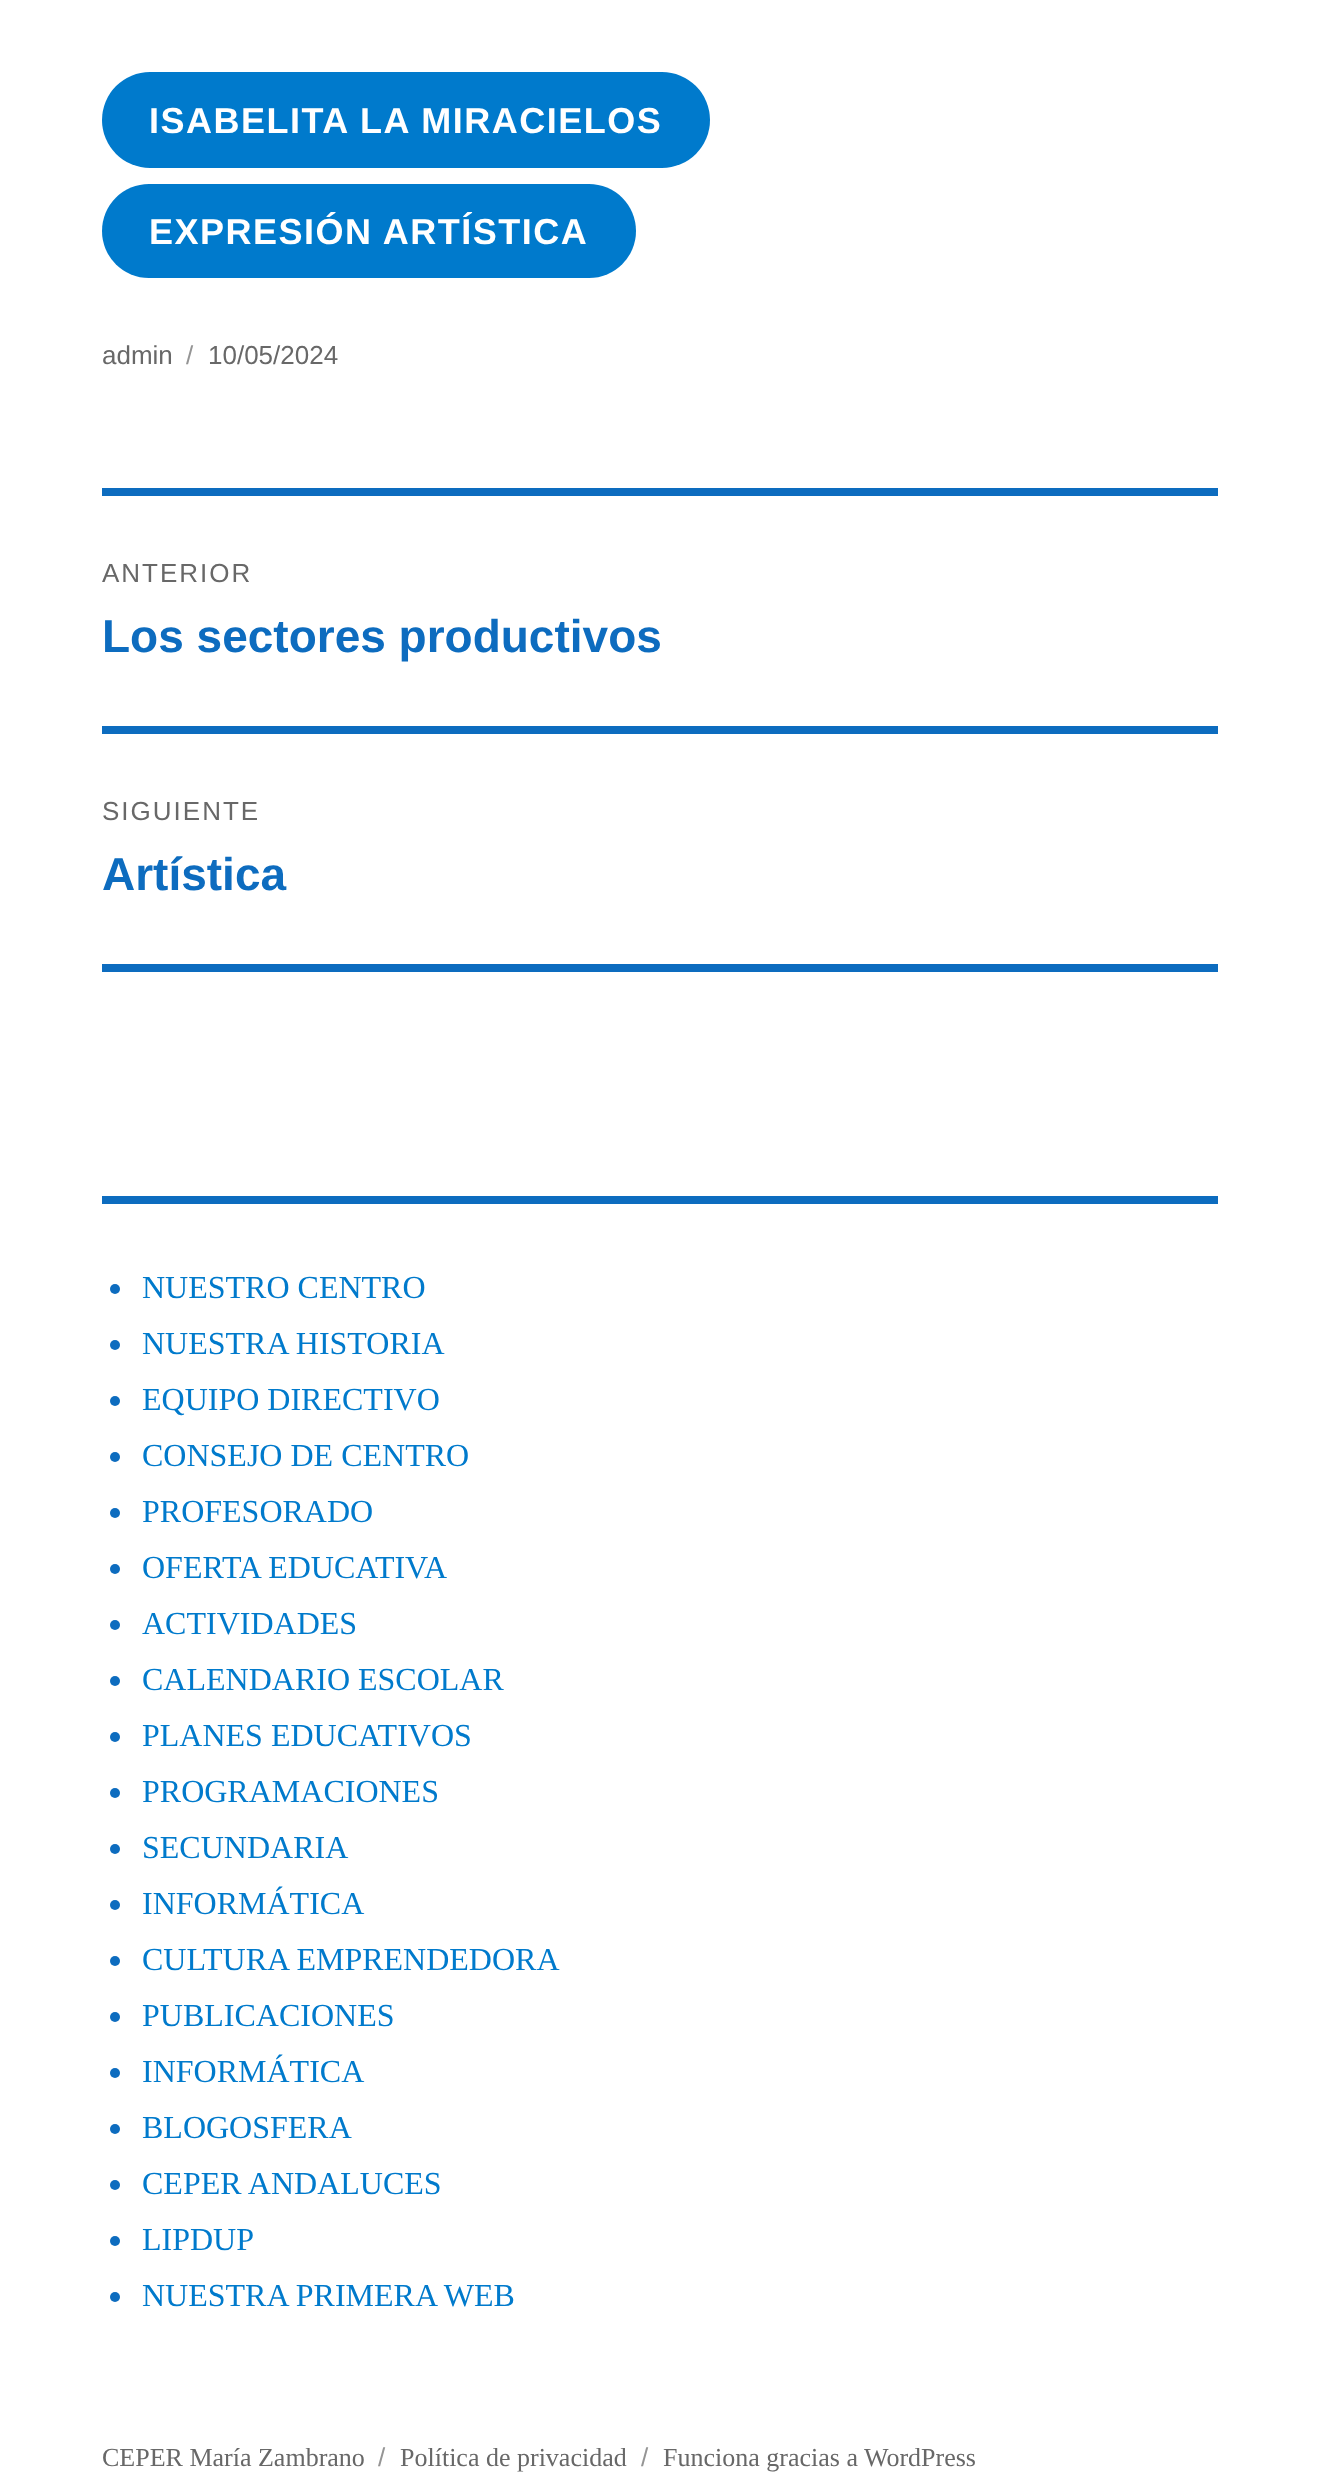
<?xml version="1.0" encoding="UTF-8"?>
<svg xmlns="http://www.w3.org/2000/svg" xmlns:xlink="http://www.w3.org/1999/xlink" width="1319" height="2489">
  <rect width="100%" height="100%" fill="#ffffff" />
  <rect x="102" y="72" width="608" height="96" rx="48" fill="#007acc" />
  <rect x="102" y="184" width="534" height="94" rx="47" fill="#007acc" />
  <rect x="102" y="488" width="1116" height="8" fill="#0d6cbf" />
  <rect x="102" y="964" width="1116" height="8" fill="#0d6cbf" />
  <rect x="102" y="726" width="1116" height="8" fill="#0d6cbf" />
  <rect x="102" y="1196" width="1116" height="8" fill="#0d6cbf" />
  <circle cx="115" cy="1289" r="5" fill="#0d6cbf" />
  <circle cx="115" cy="1345" r="5" fill="#0d6cbf" />
  <circle cx="115" cy="1401" r="5" fill="#0d6cbf" />
  <circle cx="115" cy="1457" r="5" fill="#0d6cbf" />
  <circle cx="115" cy="1513" r="5" fill="#0d6cbf" />
  <circle cx="115" cy="1569" r="5" fill="#0d6cbf" />
  <circle cx="115" cy="1625" r="5" fill="#0d6cbf" />
  <circle cx="115" cy="1681" r="5" fill="#0d6cbf" />
  <circle cx="115" cy="1737" r="5" fill="#0d6cbf" />
  <circle cx="115" cy="1793" r="5" fill="#0d6cbf" />
  <circle cx="115" cy="1849" r="5" fill="#0d6cbf" />
  <circle cx="115" cy="1905" r="5" fill="#0d6cbf" />
  <circle cx="115" cy="1961" r="5" fill="#0d6cbf" />
  <circle cx="115" cy="2017" r="5" fill="#0d6cbf" />
  <circle cx="115" cy="2073" r="5" fill="#0d6cbf" />
  <circle cx="115" cy="2129" r="5" fill="#0d6cbf" />
  <circle cx="115" cy="2185" r="5" fill="#0d6cbf" />
  <circle cx="115" cy="2241" r="5" fill="#0d6cbf" />
  <circle cx="115" cy="2297" r="5" fill="#0d6cbf" />
  <text x="149" y="133" style="font-family: Liberation Sans; font-size: 36px; font-weight: bold; letter-spacing: 1.5px; fill: #ffffff">ISABELITA LA MIRACIELOS</text>
  <text x="149" y="244" style="font-family: Liberation Sans; font-size: 36px; font-weight: bold; letter-spacing: 1.5px; fill: #ffffff">EXPRESIÓN ARTÍSTICA</text>
  <text x="102" y="364" style="font-family: Liberation Sans; font-size: 26px; fill: #686868">admin</text>
  <text x="186" y="364" style="font-family: Liberation Sans; font-size: 26px; fill: #959595">/</text>
  <text x="208" y="364" style="font-family: Liberation Sans; font-size: 26px; fill: #686868">10/05/2024</text>
  <text x="102" y="582" style="font-family: Liberation Sans; font-size: 26px; letter-spacing: 2px; fill: #686868">ANTERIOR</text>
  <text x="102" y="652" style="font-family: Liberation Sans; font-size: 46px; font-weight: bold; fill: #0d6cbf">Los sectores productivos</text>
  <text x="102" y="820" style="font-family: Liberation Sans; font-size: 26px; letter-spacing: 2px; fill: #686868">SIGUIENTE</text>
  <text x="102" y="890" style="font-family: Liberation Sans; font-size: 46px; font-weight: bold; fill: #0d6cbf">Artística</text>
  <text x="142" y="1298" style="font-family: Liberation Serif; font-size: 32px; fill: #007acc">NUESTRO CENTRO</text>
  <text x="142" y="1354" style="font-family: Liberation Serif; font-size: 32px; fill: #007acc">NUESTRA HISTORIA</text>
  <text x="142" y="1410" style="font-family: Liberation Serif; font-size: 32px; fill: #007acc">EQUIPO DIRECTIVO</text>
  <text x="142" y="1466" style="font-family: Liberation Serif; font-size: 32px; fill: #007acc">CONSEJO DE CENTRO</text>
  <text x="142" y="1522" style="font-family: Liberation Serif; font-size: 32px; fill: #007acc">PROFESORADO</text>
  <text x="142" y="1578" style="font-family: Liberation Serif; font-size: 32px; fill: #007acc">OFERTA EDUCATIVA</text>
  <text x="142" y="1634" style="font-family: Liberation Serif; font-size: 32px; fill: #007acc">ACTIVIDADES</text>
  <text x="142" y="1690" style="font-family: Liberation Serif; font-size: 32px; fill: #007acc">CALENDARIO ESCOLAR</text>
  <text x="142" y="1746" style="font-family: Liberation Serif; font-size: 32px; fill: #007acc">PLANES EDUCATIVOS</text>
  <text x="142" y="1802" style="font-family: Liberation Serif; font-size: 32px; fill: #007acc">PROGRAMACIONES</text>
  <text x="142" y="1858" style="font-family: Liberation Serif; font-size: 32px; fill: #007acc">SECUNDARIA</text>
  <text x="142" y="1914" style="font-family: Liberation Serif; font-size: 32px; fill: #007acc">INFORMÁTICA</text>
  <text x="142" y="1970" style="font-family: Liberation Serif; font-size: 32px; fill: #007acc">CULTURA EMPRENDEDORA</text>
  <text x="142" y="2026" style="font-family: Liberation Serif; font-size: 32px; fill: #007acc">PUBLICACIONES</text>
  <text x="142" y="2082" style="font-family: Liberation Serif; font-size: 32px; fill: #007acc">INFORMÁTICA</text>
  <text x="142" y="2138" style="font-family: Liberation Serif; font-size: 32px; fill: #007acc">BLOGOSFERA</text>
  <text x="142" y="2194" style="font-family: Liberation Serif; font-size: 32px; fill: #007acc">CEPER ANDALUCES</text>
  <text x="142" y="2250" style="font-family: Liberation Serif; font-size: 32px; fill: #007acc">LIPDUP</text>
  <text x="142" y="2306" style="font-family: Liberation Serif; font-size: 32px; fill: #007acc">NUESTRA PRIMERA WEB</text>
  <text x="102" y="2466" style="font-family: Liberation Serif; font-size: 26px; fill: #686868">CEPER María Zambrano</text>
  <text x="378" y="2466" style="font-family: Liberation Sans; font-size: 26px; fill: #959595">/</text>
  <text x="400" y="2466" style="font-family: Liberation Serif; font-size: 26px; fill: #686868">Política de privacidad</text>
  <text x="641" y="2466" style="font-family: Liberation Sans; font-size: 26px; fill: #959595">/</text>
  <text x="663" y="2466" style="font-family: Liberation Serif; font-size: 26px; fill: #686868">Funciona gracias a WordPress</text>
</svg>
